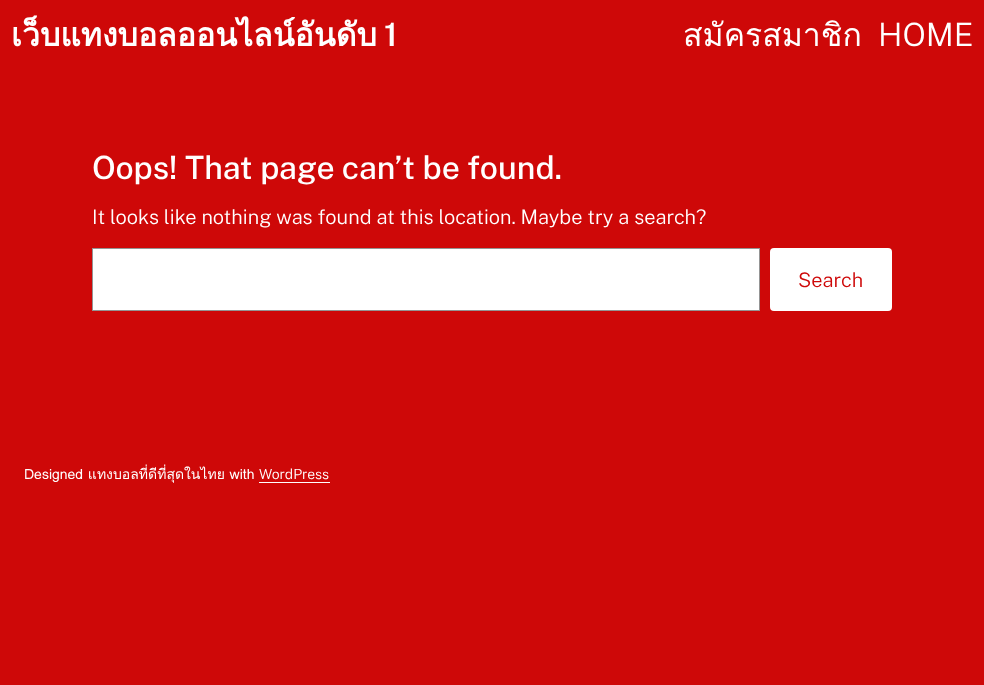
<?xml version="1.0" encoding="UTF-8"?>
<svg xmlns="http://www.w3.org/2000/svg" xmlns:xlink="http://www.w3.org/1999/xlink" width="984" height="685">
  <rect width="100%" height="100%" fill="#ce0808" />
  <rect x="92.5" y="248.5" width="667" height="62" fill="#ffffff" stroke="#949494" />
  <rect x="770" y="248" width="122" height="63" rx="4" fill="#ffffff" />
  <rect x="259" y="482" width="71" height="1" fill="#ffffff" />
  <text x="11" y="46" style="font-family: Loma; font-size: 32px; font-weight: bold; fill: #ffffff">เว็บแทงบอลออนไลน์อันดับ</text>
  <text x="384" y="46" style="font-family: Public Sans; font-size: 32px; font-weight: 600; fill: #ffffff">1</text>
  <text x="683" y="46" style="font-family: Loma; font-size: 32px; fill: #ffffff">สมัครสมาชิก</text>
  <text x="878" y="46" style="font-family: Public Sans; font-size: 32px; font-weight: 300; fill: #ffffff">HOME</text>
  <text x="92" y="179" style="font-family: Public Sans; font-size: 32px; font-weight: 500; fill: #ffffff">Oops! That page can’t be found.</text>
  <text x="92" y="224" style="font-family: Public Sans; font-size: 20px; font-weight: 300; fill: #ffffff">It looks like nothing was found at this location. Maybe try a search?</text>
  <text x="798" y="287" style="font-family: Public Sans; font-size: 20px; font-weight: 300; fill: #ce0808">Search</text>
  <text x="24" y="479" style="font-family: Loma; font-size: 14px; fill: #ffffff">Designed แทงบอลที่ดีที่สุดในไทย with</text>
  <text x="259" y="479" style="font-family: Public Sans; font-size: 14px; font-weight: 300; fill: #ffffff">WordPress</text>
</svg>
